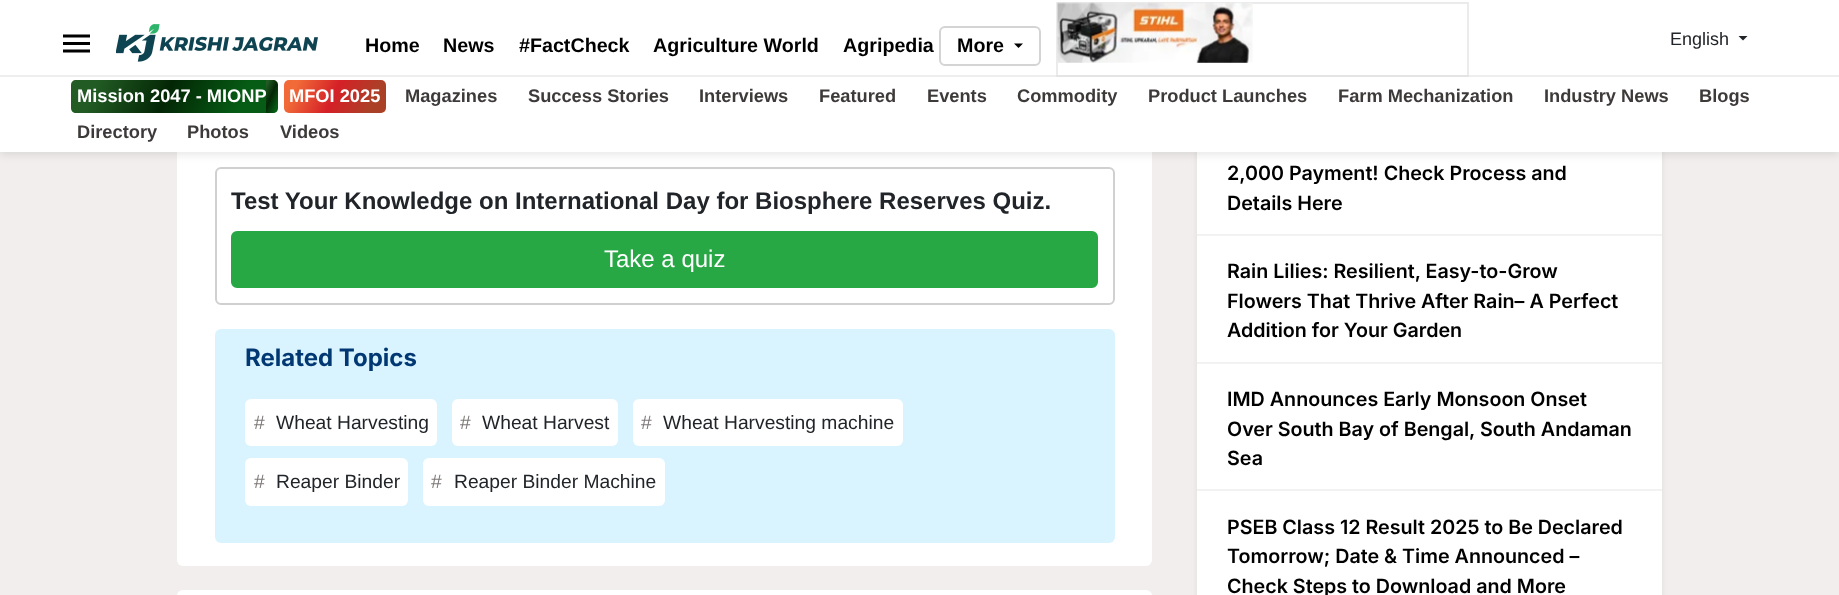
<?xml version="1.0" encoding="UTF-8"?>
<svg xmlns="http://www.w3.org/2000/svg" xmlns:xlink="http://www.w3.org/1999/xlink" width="1839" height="595">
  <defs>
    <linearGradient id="g1" gradientUnits="userSpaceOnUse" x1="80" y1="57" x2="256" y2="135"><stop offset="0.13" stop-color="#225c24" /><stop offset="0.49" stop-color="#032605" /><stop offset="0.86" stop-color="#065c14" /></linearGradient>
    <linearGradient id="g2" gradientUnits="userSpaceOnUse" x1="260" y1="91" x2="283" y2="101"><stop offset="0.13" stop-color="#225c24" /><stop offset="0.49" stop-color="#032605" /><stop offset="0.86" stop-color="#065c14" /></linearGradient>
    <linearGradient id="g3" gradientUnits="userSpaceOnUse" x1="286" y1="74" x2="383" y2="118"><stop offset="0.13" stop-color="#f16a38" /><stop offset="0.49" stop-color="#d52027" /><stop offset="0.86" stop-color="#aa4127" /></linearGradient>
  </defs>
  <rect width="100%" height="100%" fill="#f1eeed" />
  <rect x="177" y="-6" width="975" height="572" rx="6" fill="#ffffff" />
  <rect x="216" y="168" width="898" height="136" rx="5" fill="none" stroke="#d0d0d0" stroke-width="2" />
  <rect x="1197" y="35" width="465" height="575" rx="6" fill="#000000" fill-opacity="0.07" filter="blur(3px)" />
  <rect x="1197" y="152" width="465" height="443" fill="#ffffff" />
  <rect y="3" width="1839" height="152" fill="#000000" fill-opacity="0.09" filter="blur(4.5px)" />
  <rect width="1839" height="152" fill="#ffffff" />
  <image x="63" y="34" width="27" height="19" xlink:href="image1.png" />
  <image x="116" y="24" width="202" height="38" xlink:href="image2.png" />
  <rect x="940" y="27" width="100" height="38" rx="5" fill="none" stroke="#d5d4d4" stroke-width="2" />
  <path d="M 1014 43.5 h 9 l -4.5 4.5 z" fill="#000000" />
  <rect y="75" width="1839" height="2" fill="#eeeeee" />
  <rect x="1057" y="3" width="411" height="73" fill="none" stroke="#dddddd" stroke-opacity="0.59" stroke-width="2" />
  <image x="1057" y="2" width="196" height="61" xlink:href="image3.png" />
  <path d="M 1738.5 36 h 9 l -4.5 4.5 z" fill="#212529" />
  <path d="M 76 80 h 190 v 33 h -190 c -3 0 -5 -2 -5 -5 v -23 c 0 -3 2 -5 5 -5 z" fill="url(#g1)" />
  <path d="M 266 80 h 7 c 3 0 5 2 5 5 v 23 c 0 3 -2 5 -5 5 h -7 z" fill="url(#g2)" />
  <rect x="284" y="80" width="102" height="33" rx="5" fill="url(#g3)" />
  <rect x="232" y="232" width="865" height="55" rx="5" fill="#28a745" stroke="#28a745" stroke-width="2" />
  <rect x="215" y="329" width="900" height="214" rx="6" fill="#daf4ff" />
  <rect x="245" y="399" width="192" height="47" rx="6" fill="#ffffff" />
  <rect x="452" y="399" width="166" height="47" rx="6" fill="#ffffff" />
  <rect x="633" y="399" width="270" height="47" rx="6" fill="#ffffff" />
  <rect x="245" y="458" width="163" height="48" rx="6" fill="#ffffff" />
  <rect x="423" y="458" width="242" height="48" rx="6" fill="#ffffff" />
  <rect x="177" y="590" width="975" height="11" rx="6" fill="#ffffff" />
  <rect x="1197" y="234" width="465" height="2" fill="#f2f2f2" />
  <rect x="1197" y="362" width="465" height="2" fill="#f2f2f2" />
  <rect x="1197" y="489" width="465" height="2" fill="#f2f2f2" />
  <text x="365" y="52" style="font-family: Liberation Sans; font-size: 19.7px; font-weight: bold; fill: #000000">Home</text>
  <text x="443" y="52" style="font-family: Liberation Sans; font-size: 19.7px; font-weight: bold; fill: #000000">News</text>
  <text x="519" y="52" style="font-family: Liberation Sans; font-size: 19.7px; font-weight: bold; fill: #000000">#FactCheck</text>
  <text x="653" y="52" style="font-family: Liberation Sans; font-size: 19.7px; font-weight: bold; fill: #000000">Agriculture World</text>
  <text x="843" y="52" style="font-family: Liberation Sans; font-size: 19.7px; font-weight: bold; fill: #000000">Agripedia</text>
  <text x="957" y="52" style="font-family: Liberation Sans; font-size: 19.7px; font-weight: bold; fill: #000000">More</text>
  <text x="1670" y="45" style="font-family: Liberation Sans; font-size: 18px; fill: #212529">English</text>
  <text x="77" y="102" style="font-family: Liberation Sans; font-size: 18.25px; font-weight: bold; fill: #ffffff">Mission 2047 - MIONP</text>
  <text x="289" y="102" style="font-family: Liberation Sans; font-size: 18.25px; font-weight: bold; fill: #ffffff">MFOI 2025</text>
  <text x="405" y="102" style="font-family: Liberation Sans; font-size: 18.25px; font-weight: bold; fill: #3e3a3a">Magazines</text>
  <text x="528" y="102" style="font-family: Liberation Sans; font-size: 18.25px; font-weight: bold; fill: #3e3a3a">Success Stories</text>
  <text x="699" y="102" style="font-family: Liberation Sans; font-size: 18.25px; font-weight: bold; fill: #3e3a3a">Interviews</text>
  <text x="819" y="102" style="font-family: Liberation Sans; font-size: 18.25px; font-weight: bold; fill: #3e3a3a">Featured</text>
  <text x="927" y="102" style="font-family: Liberation Sans; font-size: 18.25px; font-weight: bold; fill: #3e3a3a">Events</text>
  <text x="1017" y="102" style="font-family: Liberation Sans; font-size: 18.25px; font-weight: bold; fill: #3e3a3a">Commodity</text>
  <text x="1148" y="102" style="font-family: Liberation Sans; font-size: 18.25px; font-weight: bold; fill: #3e3a3a">Product Launches</text>
  <text x="1338" y="102" style="font-family: Liberation Sans; font-size: 18.25px; font-weight: bold; fill: #3e3a3a">Farm Mechanization</text>
  <text x="1544" y="102" style="font-family: Liberation Sans; font-size: 18.25px; font-weight: bold; fill: #3e3a3a">Industry News</text>
  <text x="1699" y="102" style="font-family: Liberation Sans; font-size: 18.25px; font-weight: bold; fill: #3e3a3a">Blogs</text>
  <text x="77" y="138" style="font-family: Liberation Sans; font-size: 18.25px; font-weight: bold; fill: #3e3a3a">Directory</text>
  <text x="187" y="138" style="font-family: Liberation Sans; font-size: 18.25px; font-weight: bold; fill: #3e3a3a">Photos</text>
  <text x="280" y="138" style="font-family: Liberation Sans; font-size: 18.25px; font-weight: bold; fill: #3e3a3a">Videos</text>
  <text x="231" y="209" style="font-family: Liberation Sans; font-size: 24px; font-weight: bold; fill: #212529">Test Your Knowledge on International Day for Biosphere Reserves Quiz.</text>
  <text x="604" y="267" style="font-family: Liberation Sans; font-size: 24px; fill: #ffffff">Take a quiz</text>
  <text x="245" y="366" style="font-family: Inter; font-size: 24px; font-weight: bold; fill: #013873">Related Topics</text>
  <text x="254" y="429" style="font-family: Liberation Sans; font-size: 19.25px; fill: #7d7878">#</text>
  <text x="276" y="429" style="font-family: Liberation Sans; font-size: 19.25px; fill: #212529">Wheat Harvesting</text>
  <text x="460" y="429" style="font-family: Liberation Sans; font-size: 19.25px; fill: #7d7878">#</text>
  <text x="482" y="429" style="font-family: Liberation Sans; font-size: 19.25px; fill: #212529">Wheat Harvest</text>
  <text x="641" y="429" style="font-family: Liberation Sans; font-size: 19.25px; fill: #7d7878">#</text>
  <text x="663" y="429" style="font-family: Liberation Sans; font-size: 19.25px; fill: #212529">Wheat Harvesting machine</text>
  <text x="254" y="488" style="font-family: Liberation Sans; font-size: 19.25px; fill: #7d7878">#</text>
  <text x="276" y="488" style="font-family: Liberation Sans; font-size: 19.25px; fill: #212529">Reaper Binder</text>
  <text x="431" y="488" style="font-family: Liberation Sans; font-size: 19.25px; fill: #7d7878">#</text>
  <text x="454" y="488" style="font-family: Liberation Sans; font-size: 19.25px; fill: #212529">Reaper Binder Machine</text>
  <text x="1227" y="180" style="font-family: Inter; font-size: 19.7px; font-weight: 600; fill: #000000">2,000 Payment! Check Process and</text>
  <text x="1227" y="210" style="font-family: Inter; font-size: 19.7px; font-weight: 600; fill: #000000">Details Here</text>
  <text x="1227" y="278" style="font-family: Inter; font-size: 19.7px; font-weight: 600; fill: #000000">Rain Lilies: Resilient, Easy-to-Grow</text>
  <text x="1227" y="308" style="font-family: Inter; font-size: 19.7px; font-weight: 600; fill: #000000">Flowers That Thrive After Rain– A Perfect</text>
  <text x="1227" y="337" style="font-family: Inter; font-size: 19.7px; font-weight: 600; fill: #000000">Addition for Your Garden</text>
  <text x="1227" y="406" style="font-family: Inter; font-size: 19.7px; font-weight: 600; fill: #000000">IMD Announces Early Monsoon Onset</text>
  <text x="1227" y="436" style="font-family: Inter; font-size: 19.7px; font-weight: 600; fill: #000000">Over South Bay of Bengal, South Andaman</text>
  <text x="1227" y="465" style="font-family: Inter; font-size: 19.7px; font-weight: 600; fill: #000000">Sea</text>
  <text x="1227" y="534" style="font-family: Inter; font-size: 19.7px; font-weight: 600; fill: #000000">PSEB Class 12 Result 2025 to Be Declared</text>
  <text x="1227" y="563" style="font-family: Inter; font-size: 19.7px; font-weight: 600; fill: #000000">Tomorrow; Date &amp; Time Announced –</text>
  <text x="1227" y="593" style="font-family: Inter; font-size: 19.7px; font-weight: 600; fill: #000000">Check Steps to Download and More</text>
</svg>
